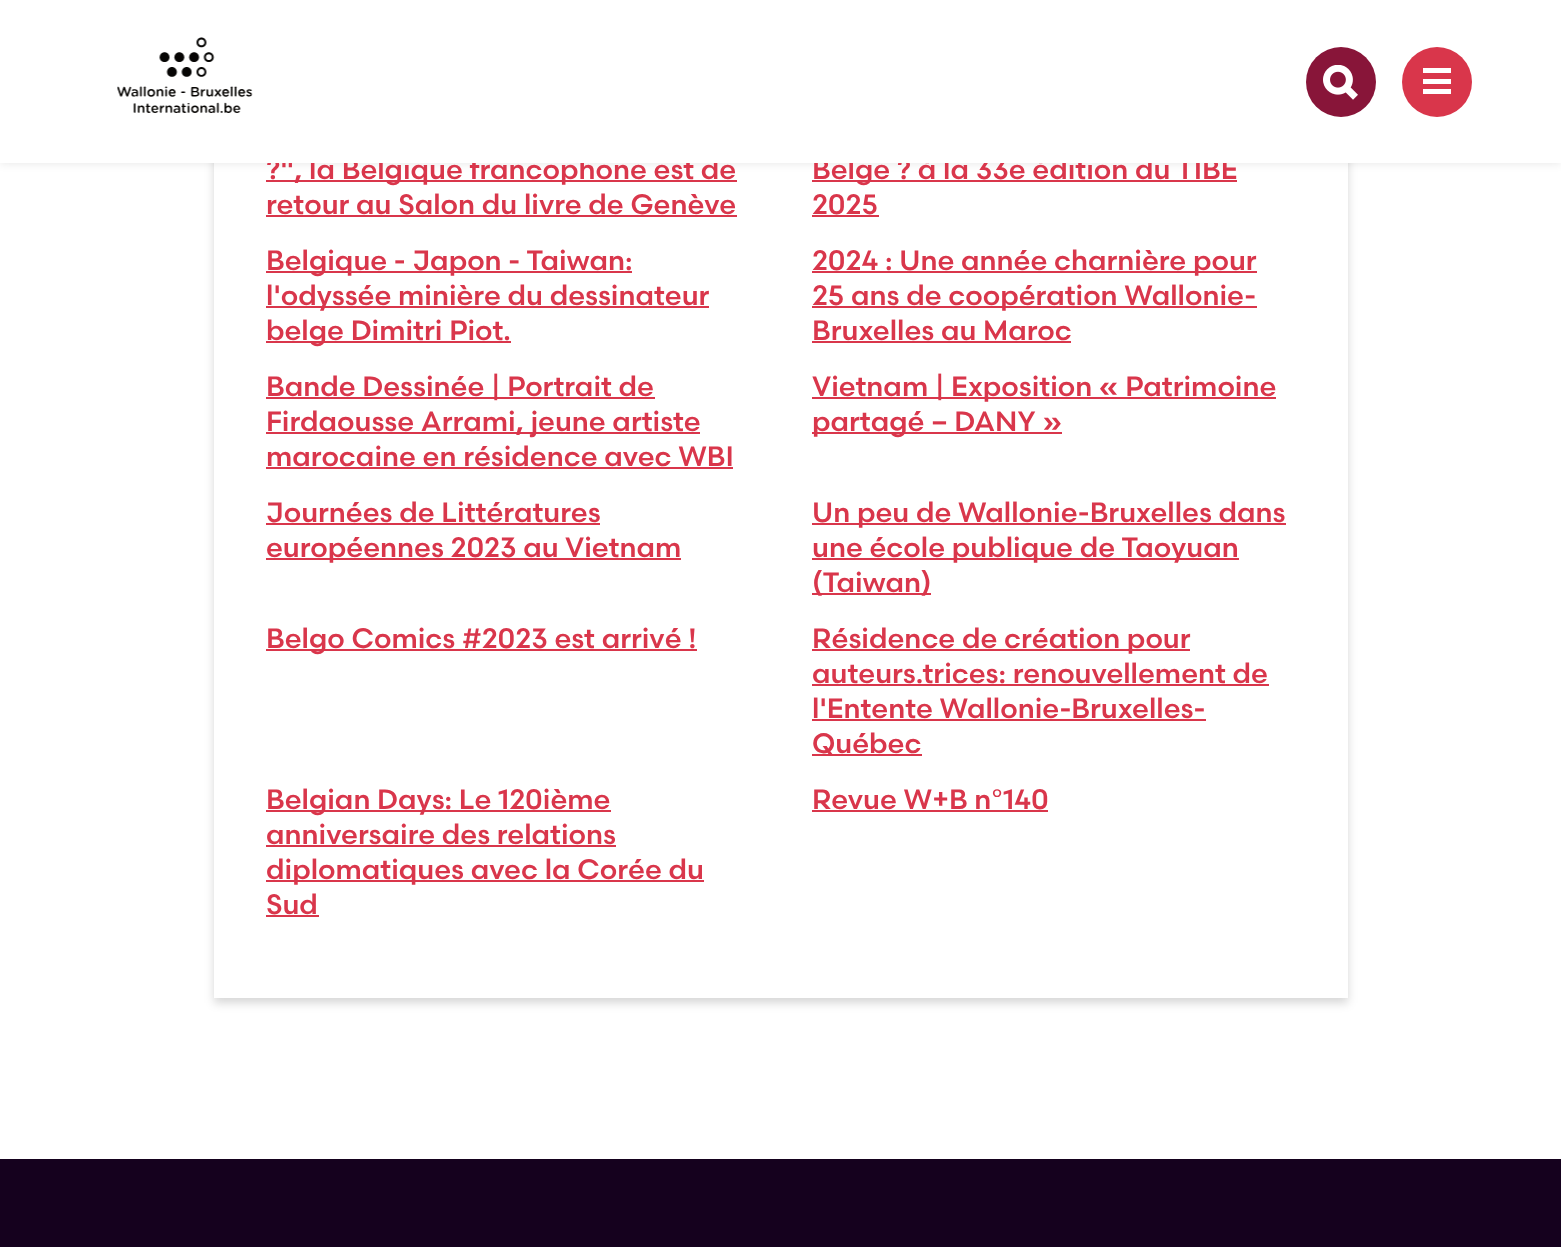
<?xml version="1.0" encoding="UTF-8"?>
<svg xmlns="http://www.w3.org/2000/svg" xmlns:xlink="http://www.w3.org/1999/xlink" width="1561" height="1247">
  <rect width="100%" height="100%" fill="#ffffff" />
  <rect x="214" y="-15" width="1134" height="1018" fill="#000000" fill-opacity="0.16" filter="blur(5px)" />
  <rect x="214" y="163" width="1134" height="835" fill="#ffffff" />
  <rect width="1561" height="163" fill="#000000" fill-opacity="0.1" filter="blur(5px)" />
  <rect x="266" y="180" width="471" height="2" fill="#d9364b" />
  <rect x="266" y="215" width="471" height="2" fill="#d9364b" />
  <rect x="812" y="180" width="425" height="2" fill="#d9364b" />
  <rect x="812" y="215" width="67" height="2" fill="#d9364b" />
  <rect x="266" y="271" width="366" height="2" fill="#d9364b" />
  <rect x="266" y="306" width="443" height="2" fill="#d9364b" />
  <rect x="266" y="341" width="245" height="2" fill="#d9364b" />
  <rect x="812" y="271" width="445" height="2" fill="#d9364b" />
  <rect x="812" y="306" width="445" height="2" fill="#d9364b" />
  <rect x="812" y="341" width="259" height="2" fill="#d9364b" />
  <rect x="266" y="397" width="389" height="2" fill="#d9364b" />
  <rect x="266" y="432" width="434" height="2" fill="#d9364b" />
  <rect x="266" y="467" width="467" height="2" fill="#d9364b" />
  <rect x="812" y="397" width="464" height="2" fill="#d9364b" />
  <rect x="812" y="432" width="250" height="2" fill="#d9364b" />
  <rect x="266" y="523" width="334" height="2" fill="#d9364b" />
  <rect x="266" y="558" width="415" height="2" fill="#d9364b" />
  <rect x="812" y="523" width="474" height="2" fill="#d9364b" />
  <rect x="812" y="558" width="427" height="2" fill="#d9364b" />
  <rect x="812" y="593" width="119" height="2" fill="#d9364b" />
  <rect x="266" y="649" width="431" height="2" fill="#d9364b" />
  <rect x="812" y="649" width="378" height="2" fill="#d9364b" />
  <rect x="812" y="684" width="457" height="2" fill="#d9364b" />
  <rect x="812" y="719" width="394" height="2" fill="#d9364b" />
  <rect x="812" y="754" width="110" height="2" fill="#d9364b" />
  <rect x="266" y="810" width="345" height="2" fill="#d9364b" />
  <rect x="266" y="845" width="350" height="2" fill="#d9364b" />
  <rect x="266" y="880" width="438" height="2" fill="#d9364b" />
  <rect x="266" y="915" width="53" height="2" fill="#d9364b" />
  <rect x="812" y="810" width="236" height="2" fill="#d9364b" />
  <rect y="1159" width="1561" height="88" fill="#15011e" />
  <text x="266" y="179" style="font-family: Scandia; font-size: 28px; font-weight: 500; fill: #d9364b">?", la Belgique francophone est de</text>
  <text x="266" y="214" style="font-family: Scandia; font-size: 28px; font-weight: 500; fill: #d9364b">retour au Salon du livre de Genève</text>
  <text x="812" y="179" style="font-family: Scandia; font-size: 28px; font-weight: 500; fill: #d9364b">Belge ? à la 33e édition du TIBE</text>
  <rect width="1561" height="163" fill="#ffffff" />
  <circle cx="1437" cy="82" r="35" fill="#d9364b" />
  <rect x="1423" y="89" width="28" height="5" fill="#ffffff" />
  <rect x="1423" y="79" width="28" height="5" fill="#ffffff" />
  <rect x="1423" y="68" width="28" height="5" fill="#ffffff" />
  <circle cx="1341" cy="82" r="35" fill="#881539" />
  <image x="1323" y="65" width="35" height="35" xlink:href="image2.png" />
  <image x="117" y="37" width="136" height="76" xlink:href="image1.png" />
  <text x="812" y="214" style="font-family: Scandia; font-size: 28px; font-weight: 500; fill: #d9364b">2025</text>
  <text x="266" y="270" style="font-family: Scandia; font-size: 28px; font-weight: 500; fill: #d9364b">Belgique - Japon - Taiwan:</text>
  <text x="266" y="305" style="font-family: Scandia; font-size: 28px; font-weight: 500; fill: #d9364b">l'odyssée minière du dessinateur</text>
  <text x="266" y="340" style="font-family: Scandia; font-size: 28px; font-weight: 500; fill: #d9364b">belge Dimitri Piot.</text>
  <text x="812" y="270" style="font-family: Scandia; font-size: 28px; font-weight: 500; fill: #d9364b">2024 : Une année charnière pour</text>
  <text x="812" y="305" style="font-family: Scandia; font-size: 28px; font-weight: 500; fill: #d9364b">25 ans de coopération Wallonie-</text>
  <text x="812" y="340" style="font-family: Scandia; font-size: 28px; font-weight: 500; fill: #d9364b">Bruxelles au Maroc</text>
  <text x="266" y="396" style="font-family: Scandia; font-size: 28px; font-weight: 500; fill: #d9364b">Bande Dessinée | Portrait de</text>
  <text x="266" y="431" style="font-family: Scandia; font-size: 28px; font-weight: 500; fill: #d9364b">Firdaousse Arrami, jeune artiste</text>
  <text x="266" y="466" style="font-family: Scandia; font-size: 28px; font-weight: 500; fill: #d9364b">marocaine en résidence avec WBI</text>
  <text x="812" y="396" style="font-family: Scandia; font-size: 28px; font-weight: 500; fill: #d9364b">Vietnam | Exposition « Patrimoine</text>
  <text x="812" y="431" style="font-family: Scandia; font-size: 28px; font-weight: 500; fill: #d9364b">partagé – DANY »</text>
  <text x="266" y="522" style="font-family: Scandia; font-size: 28px; font-weight: 500; fill: #d9364b">Journées de Littératures</text>
  <text x="266" y="557" style="font-family: Scandia; font-size: 28px; font-weight: 500; fill: #d9364b">européennes 2023 au Vietnam</text>
  <text x="812" y="522" style="font-family: Scandia; font-size: 28px; font-weight: 500; fill: #d9364b">Un peu de Wallonie-Bruxelles dans</text>
  <text x="812" y="557" style="font-family: Scandia; font-size: 28px; font-weight: 500; fill: #d9364b">une école publique de Taoyuan</text>
  <text x="812" y="592" style="font-family: Scandia; font-size: 28px; font-weight: 500; fill: #d9364b">(Taiwan)</text>
  <text x="266" y="648" style="font-family: Scandia; font-size: 28px; font-weight: 500; fill: #d9364b">Belgo Comics #2023 est arrivé !</text>
  <text x="812" y="648" style="font-family: Scandia; font-size: 28px; font-weight: 500; fill: #d9364b">Résidence de création pour</text>
  <text x="812" y="683" style="font-family: Scandia; font-size: 28px; font-weight: 500; fill: #d9364b">auteurs.trices: renouvellement de</text>
  <text x="812" y="718" style="font-family: Scandia; font-size: 28px; font-weight: 500; fill: #d9364b">l'Entente Wallonie-Bruxelles-</text>
  <text x="812" y="753" style="font-family: Scandia; font-size: 28px; font-weight: 500; fill: #d9364b">Québec</text>
  <text x="266" y="809" style="font-family: Scandia; font-size: 28px; font-weight: 500; fill: #d9364b">Belgian Days: Le 120ième</text>
  <text x="266" y="844" style="font-family: Scandia; font-size: 28px; font-weight: 500; fill: #d9364b">anniversaire des relations</text>
  <text x="266" y="879" style="font-family: Scandia; font-size: 28px; font-weight: 500; fill: #d9364b">diplomatiques avec la Corée du</text>
  <text x="266" y="914" style="font-family: Scandia; font-size: 28px; font-weight: 500; fill: #d9364b">Sud</text>
  <text x="812" y="809" style="font-family: Scandia; font-size: 28px; font-weight: 500; fill: #d9364b">Revue W+B n°140</text>
</svg>
